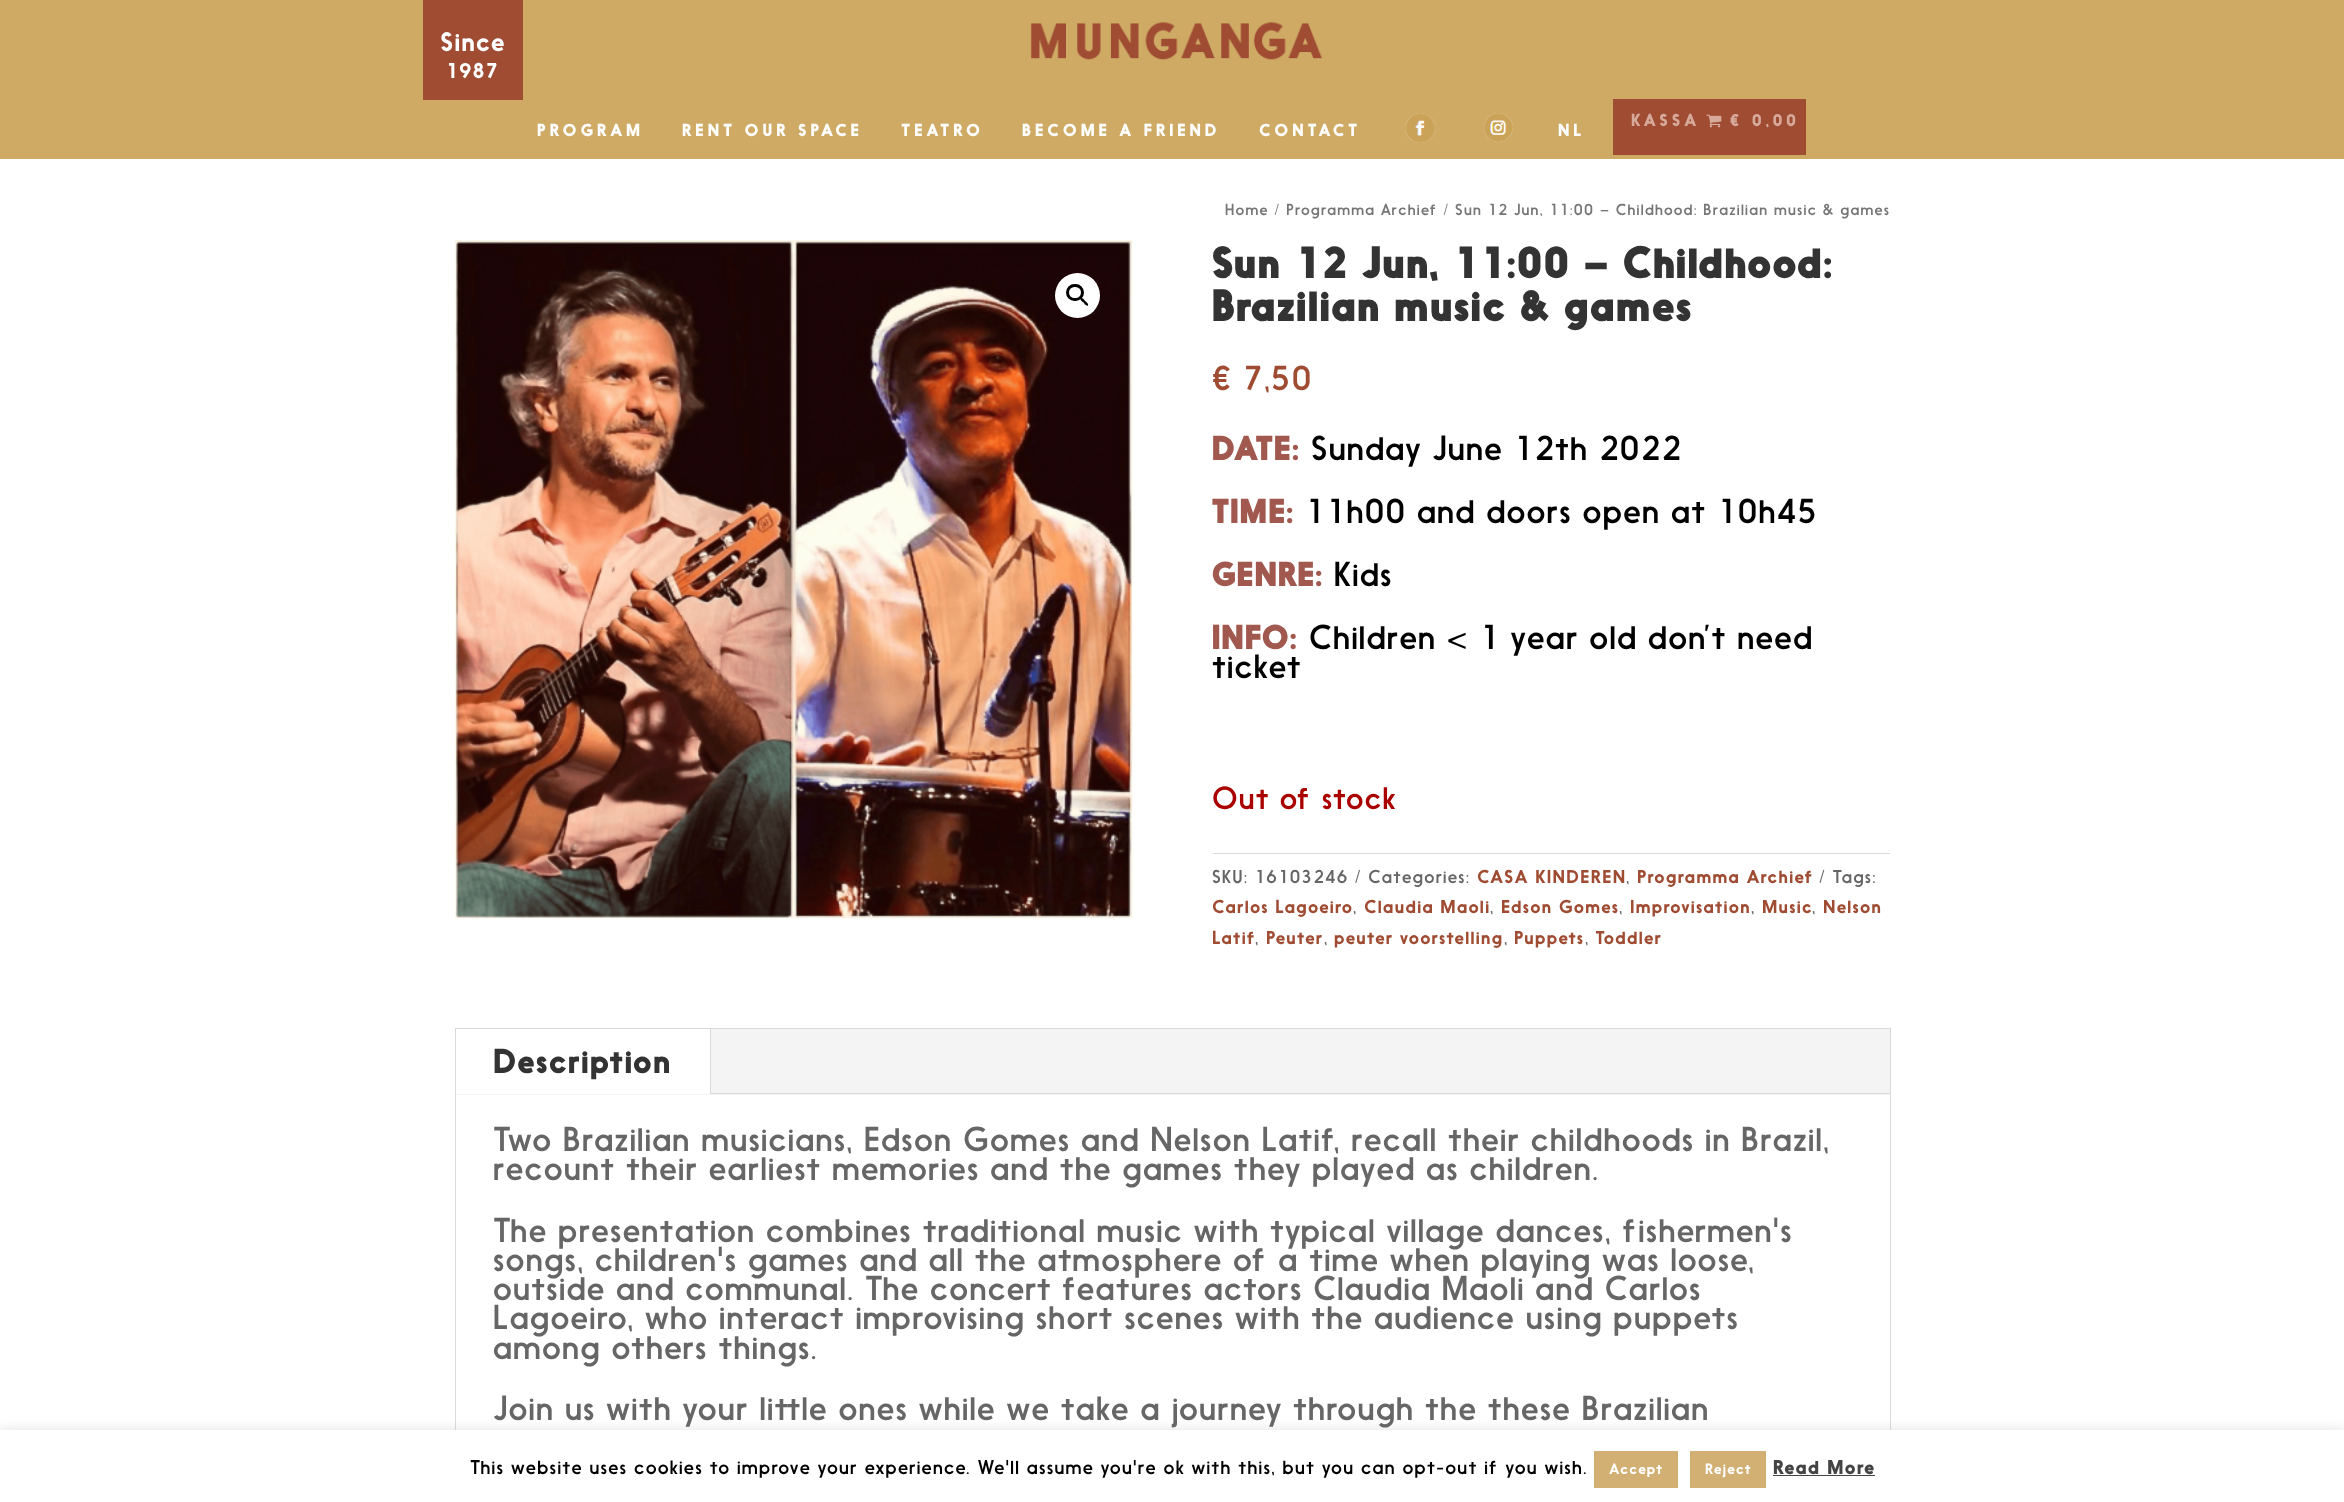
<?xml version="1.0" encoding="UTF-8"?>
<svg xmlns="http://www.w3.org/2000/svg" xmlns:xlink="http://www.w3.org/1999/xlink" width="2344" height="1502">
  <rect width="100%" height="100%" fill="#ffffff" />
  <rect width="2344" height="159" fill="#ceaa65" />
  <rect x="423" width="100" height="100" fill="#9f4c33" />
  <image x="1031" y="22" width="292" height="38" xlink:href="image1.png" />
  <image x="1405" y="113" width="31" height="30" xlink:href="image2.png" />
  <image x="1484" y="113" width="29" height="29" xlink:href="image3.png" />
  <rect x="1613" y="99" width="193" height="56" fill="#9f4c33" />
  <image x="1706" y="114" width="16" height="14" xlink:href="image4.png" />
  <image x="455" y="240" width="678" height="679" xlink:href="image5.png" />
  <circle cx="1077.5" cy="295.5" r="22.5" fill="#ffffff" />
  <rect x="1067.5" y="285.5" width="15" height="14" rx="7" fill="none" stroke="#000000" stroke-width="3" />
  <path d="M 1080.5 298 c 1.5 -1 4 2 4.5 3 c 1 0.5 4 3 3 4.5 c -1.5 1 -4 -2 -4.5 -3 c -1 -0.5 -4 -3 -3 -4.5 z" fill="#000000" />
  <rect x="1213" y="853" width="677" height="1" fill="#dadada" />
  <rect x="455.5" y="1028.5" width="1435" height="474" fill="none" stroke="#d9d9d9" />
  <rect x="456" y="1029" width="1434" height="66" fill="#f4f4f4" />
  <rect x="456" y="1029" width="254" height="65" fill="#ffffff" />
  <rect x="710" y="1029" width="1" height="65" fill="#d9d9d9" />
  <rect x="711" y="1093" width="1179" height="1" fill="#d9d9d9" />
  <rect y="1429" width="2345" height="72" fill="#acabab" fill-opacity="0.3" filter="blur(6px)" />
  <rect y="1430" width="2344" height="72" fill="#ffffff" />
  <rect x="1594" y="1451" width="84" height="37" fill="#d2b074" />
  <rect x="1690" y="1451" width="76" height="37" fill="#d2b074" />
  <rect x="1773" y="1475" width="102" height="1" fill="#444444" />
  <text x="440" y="51" style="font-family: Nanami; font-size: 25px; font-weight: 500; letter-spacing: 1.25px; fill: #ffffff">Since</text>
  <text x="446" y="78" style="font-family: Nanami; font-size: 20px; font-weight: 500; letter-spacing: 1.25px; fill: #ffffff">1987</text>
  <text x="1631" y="126" style="font-family: Nanami; font-size: 16.25px; font-weight: bold; letter-spacing: 3.75px; fill: #d6a99b">KASSA</text>
  <text x="1730" y="126" style="font-family: Nanami; font-size: 16.25px; font-weight: bold; letter-spacing: 3.75px; fill: #d6a99b">€ 0,00</text>
  <text x="537" y="136" style="font-family: Nanami; font-size: 16.25px; font-weight: bold; letter-spacing: 3.75px; fill: #ffffff">PROGRAM</text>
  <text x="682" y="136" style="font-family: Nanami; font-size: 16.25px; font-weight: bold; letter-spacing: 3.75px; fill: #ffffff">RENT OUR SPACE</text>
  <text x="901" y="136" style="font-family: Nanami; font-size: 16.25px; font-weight: bold; letter-spacing: 3.75px; fill: #ffffff">TEATRO</text>
  <text x="1022" y="136" style="font-family: Nanami; font-size: 16.25px; font-weight: bold; letter-spacing: 3.75px; fill: #ffffff">BECOME A FRIEND</text>
  <text x="1259" y="136" style="font-family: Nanami; font-size: 16.25px; font-weight: bold; letter-spacing: 3.75px; fill: #ffffff">CONTACT</text>
  <text x="1558" y="136" style="font-family: Nanami; font-size: 16.25px; font-weight: bold; letter-spacing: 3.75px; fill: #ffffff">NL</text>
  <text x="1225" y="215" style="font-family: Nanami; font-size: 15px; letter-spacing: 1.25px; fill: #767676">Home / Programma Archief / Sun 12 Jun, 11:00 – Childhood: Brazilian music &amp; games</text>
  <text x="1212" y="278" style="font-family: Nanami; font-size: 42.5px; font-weight: 900; letter-spacing: 1.25px; fill: #333333">Sun 12 Jun, 11:00 – Childhood:</text>
  <text x="1212" y="321" style="font-family: Nanami; font-size: 42.5px; font-weight: 900; letter-spacing: 1.25px; fill: #333333">Brazilian music &amp; games</text>
  <text x="1212" y="390" style="font-family: Nanami; font-size: 32.5px; letter-spacing: 1.25px; fill: #9f4c33">€ 7,50</text>
  <text x="1212" y="460" style="font-family: Nanami; font-size: 32.5px; font-weight: 900; letter-spacing: 1.25px; fill: #a1584e">DATE:</text>
  <text x="1311" y="460" style="font-family: Nanami; font-size: 32.5px; letter-spacing: 1.25px; fill: #000000">Sunday June 12th 2022</text>
  <text x="1212" y="523" style="font-family: Nanami; font-size: 32.5px; font-weight: 900; letter-spacing: 1.25px; fill: #a1584e">TIME:</text>
  <text x="1305" y="523" style="font-family: Nanami; font-size: 32.5px; letter-spacing: 1.25px; fill: #000000">11h00 and doors open at 10h45</text>
  <text x="1212" y="586" style="font-family: Nanami; font-size: 32.5px; font-weight: 900; letter-spacing: 1.25px; fill: #a1584e">GENRE:</text>
  <text x="1334" y="586" style="font-family: Nanami; font-size: 32.5px; letter-spacing: 1.25px; fill: #000000">Kids</text>
  <text x="1212" y="649" style="font-family: Nanami; font-size: 32.5px; font-weight: 900; letter-spacing: 1.25px; fill: #a1584e">INFO:</text>
  <text x="1309" y="649" style="font-family: Nanami; font-size: 32.5px; letter-spacing: 1.25px; fill: #000000">Children &lt; 1 year old don’t need</text>
  <text x="1212" y="678" style="font-family: Nanami; font-size: 32.5px; letter-spacing: 1.25px; fill: #000000">ticket</text>
  <text x="1212" y="809" style="font-family: Nanami; font-size: 30px; letter-spacing: 1.25px; fill: #aa0000">Out of stock</text>
  <text x="1212" y="883" style="font-family: Nanami; font-size: 17.5px; letter-spacing: 1.25px; fill: #666666">SKU: 16103246 / Categories:</text>
  <text x="1477" y="883" style="font-family: Nanami; font-size: 17.5px; font-weight: 500; letter-spacing: 1.25px; fill: #9f4c33">CASA KINDEREN</text>
  <text x="1626" y="883" style="font-family: Nanami; font-size: 17.5px; letter-spacing: 1.25px; fill: #666666">,</text>
  <text x="1637" y="883" style="font-family: Nanami; font-size: 17.5px; font-weight: 500; letter-spacing: 1.25px; fill: #9f4c33">Programma Archief</text>
  <text x="1819" y="883" style="font-family: Nanami; font-size: 17.5px; letter-spacing: 1.25px; fill: #666666">/ Tags:</text>
  <text x="1212" y="913" style="font-family: Nanami; font-size: 17.5px; font-weight: 500; letter-spacing: 1.25px; fill: #9f4c33">Carlos Lagoeiro</text>
  <text x="1353" y="913" style="font-family: Nanami; font-size: 17.5px; letter-spacing: 1.25px; fill: #666666">,</text>
  <text x="1364" y="913" style="font-family: Nanami; font-size: 17.5px; font-weight: 500; letter-spacing: 1.25px; fill: #9f4c33">Claudia Maoli</text>
  <text x="1490" y="913" style="font-family: Nanami; font-size: 17.5px; letter-spacing: 1.25px; fill: #666666">,</text>
  <text x="1501" y="913" style="font-family: Nanami; font-size: 17.5px; font-weight: 500; letter-spacing: 1.25px; fill: #9f4c33">Edson Gomes</text>
  <text x="1619" y="913" style="font-family: Nanami; font-size: 17.5px; letter-spacing: 1.25px; fill: #666666">,</text>
  <text x="1630" y="913" style="font-family: Nanami; font-size: 17.5px; font-weight: 500; letter-spacing: 1.25px; fill: #9f4c33">Improvisation</text>
  <text x="1751" y="913" style="font-family: Nanami; font-size: 17.5px; letter-spacing: 1.25px; fill: #666666">,</text>
  <text x="1762" y="913" style="font-family: Nanami; font-size: 17.5px; font-weight: 500; letter-spacing: 1.25px; fill: #9f4c33">Music</text>
  <text x="1812" y="913" style="font-family: Nanami; font-size: 17.5px; letter-spacing: 1.25px; fill: #666666">,</text>
  <text x="1823" y="913" style="font-family: Nanami; font-size: 17.5px; font-weight: 500; letter-spacing: 1.25px; fill: #9f4c33">Nelson</text>
  <text x="1212" y="944" style="font-family: Nanami; font-size: 17.5px; font-weight: 500; letter-spacing: 1.25px; fill: #9f4c33">Latif</text>
  <text x="1255" y="944" style="font-family: Nanami; font-size: 17.5px; letter-spacing: 1.25px; fill: #666666">,</text>
  <text x="1266" y="944" style="font-family: Nanami; font-size: 17.5px; font-weight: 500; letter-spacing: 1.25px; fill: #9f4c33">Peuter</text>
  <text x="1324" y="944" style="font-family: Nanami; font-size: 17.5px; letter-spacing: 1.25px; fill: #666666">,</text>
  <text x="1334" y="944" style="font-family: Nanami; font-size: 17.5px; font-weight: 500; letter-spacing: 1.25px; fill: #9f4c33">peuter voorstelling</text>
  <text x="1504" y="944" style="font-family: Nanami; font-size: 17.5px; letter-spacing: 1.25px; fill: #666666">,</text>
  <text x="1514" y="944" style="font-family: Nanami; font-size: 17.5px; font-weight: 500; letter-spacing: 1.25px; fill: #9f4c33">Puppets</text>
  <text x="1585" y="944" style="font-family: Nanami; font-size: 17.5px; letter-spacing: 1.25px; fill: #666666">,</text>
  <text x="1595" y="944" style="font-family: Nanami; font-size: 17.5px; font-weight: 500; letter-spacing: 1.25px; fill: #9f4c33">Toddler</text>
  <text x="493" y="1073" style="font-family: Nanami; font-size: 32.5px; font-weight: bold; letter-spacing: 1.25px; fill: #333333">Description</text>
  <text x="493" y="1151" style="font-family: Nanami; font-size: 32.5px; letter-spacing: 1.25px; fill: #666666">Two Brazilian musicians, Edson Gomes and Nelson Latif, recall their childhoods in Brazil,</text>
  <text x="493" y="1180" style="font-family: Nanami; font-size: 32.5px; letter-spacing: 1.25px; fill: #666666">recount their earliest memories and the games they played as children.</text>
  <text x="493" y="1242" style="font-family: Nanami; font-size: 32.5px; letter-spacing: 1.25px; fill: #666666">The presentation combines traditional music with typical village dances, fishermen's</text>
  <text x="493" y="1271" style="font-family: Nanami; font-size: 32.5px; letter-spacing: 1.25px; fill: #666666">songs, children's games and all the atmosphere of a time when playing was loose,</text>
  <text x="493" y="1300" style="font-family: Nanami; font-size: 32.5px; letter-spacing: 1.25px; fill: #666666">outside and communal. The concert features actors Claudia Maoli and Carlos</text>
  <text x="493" y="1329" style="font-family: Nanami; font-size: 32.5px; letter-spacing: 1.25px; fill: #666666">Lagoeiro, who interact improvising short scenes with the audience using puppets</text>
  <text x="493" y="1359" style="font-family: Nanami; font-size: 32.5px; letter-spacing: 1.25px; fill: #666666">among others things.</text>
  <text x="493" y="1420" style="font-family: Nanami; font-size: 32.5px; letter-spacing: 1.25px; fill: #666666">Join us with your little ones while we take a journey through the these Brazilian</text>
  <text x="470" y="1474" style="font-family: Nanami; font-size: 18.75px; letter-spacing: 1.25px; fill: #000000">This website uses cookies to improve your experience. We'll assume you're ok with this, but you can opt-out if you wish.</text>
  <text x="1609" y="1474" style="font-family: Nanami; font-size: 14px; font-weight: 500; letter-spacing: 1.25px; fill: #ffffff">Accept</text>
  <text x="1705" y="1474" style="font-family: Nanami; font-size: 14px; font-weight: 500; letter-spacing: 1.25px; fill: #ffffff">Reject</text>
  <text x="1773" y="1474" style="font-family: Nanami; font-size: 18.75px; font-weight: bold; letter-spacing: 1.25px; fill: #444444">Read More</text>
</svg>
